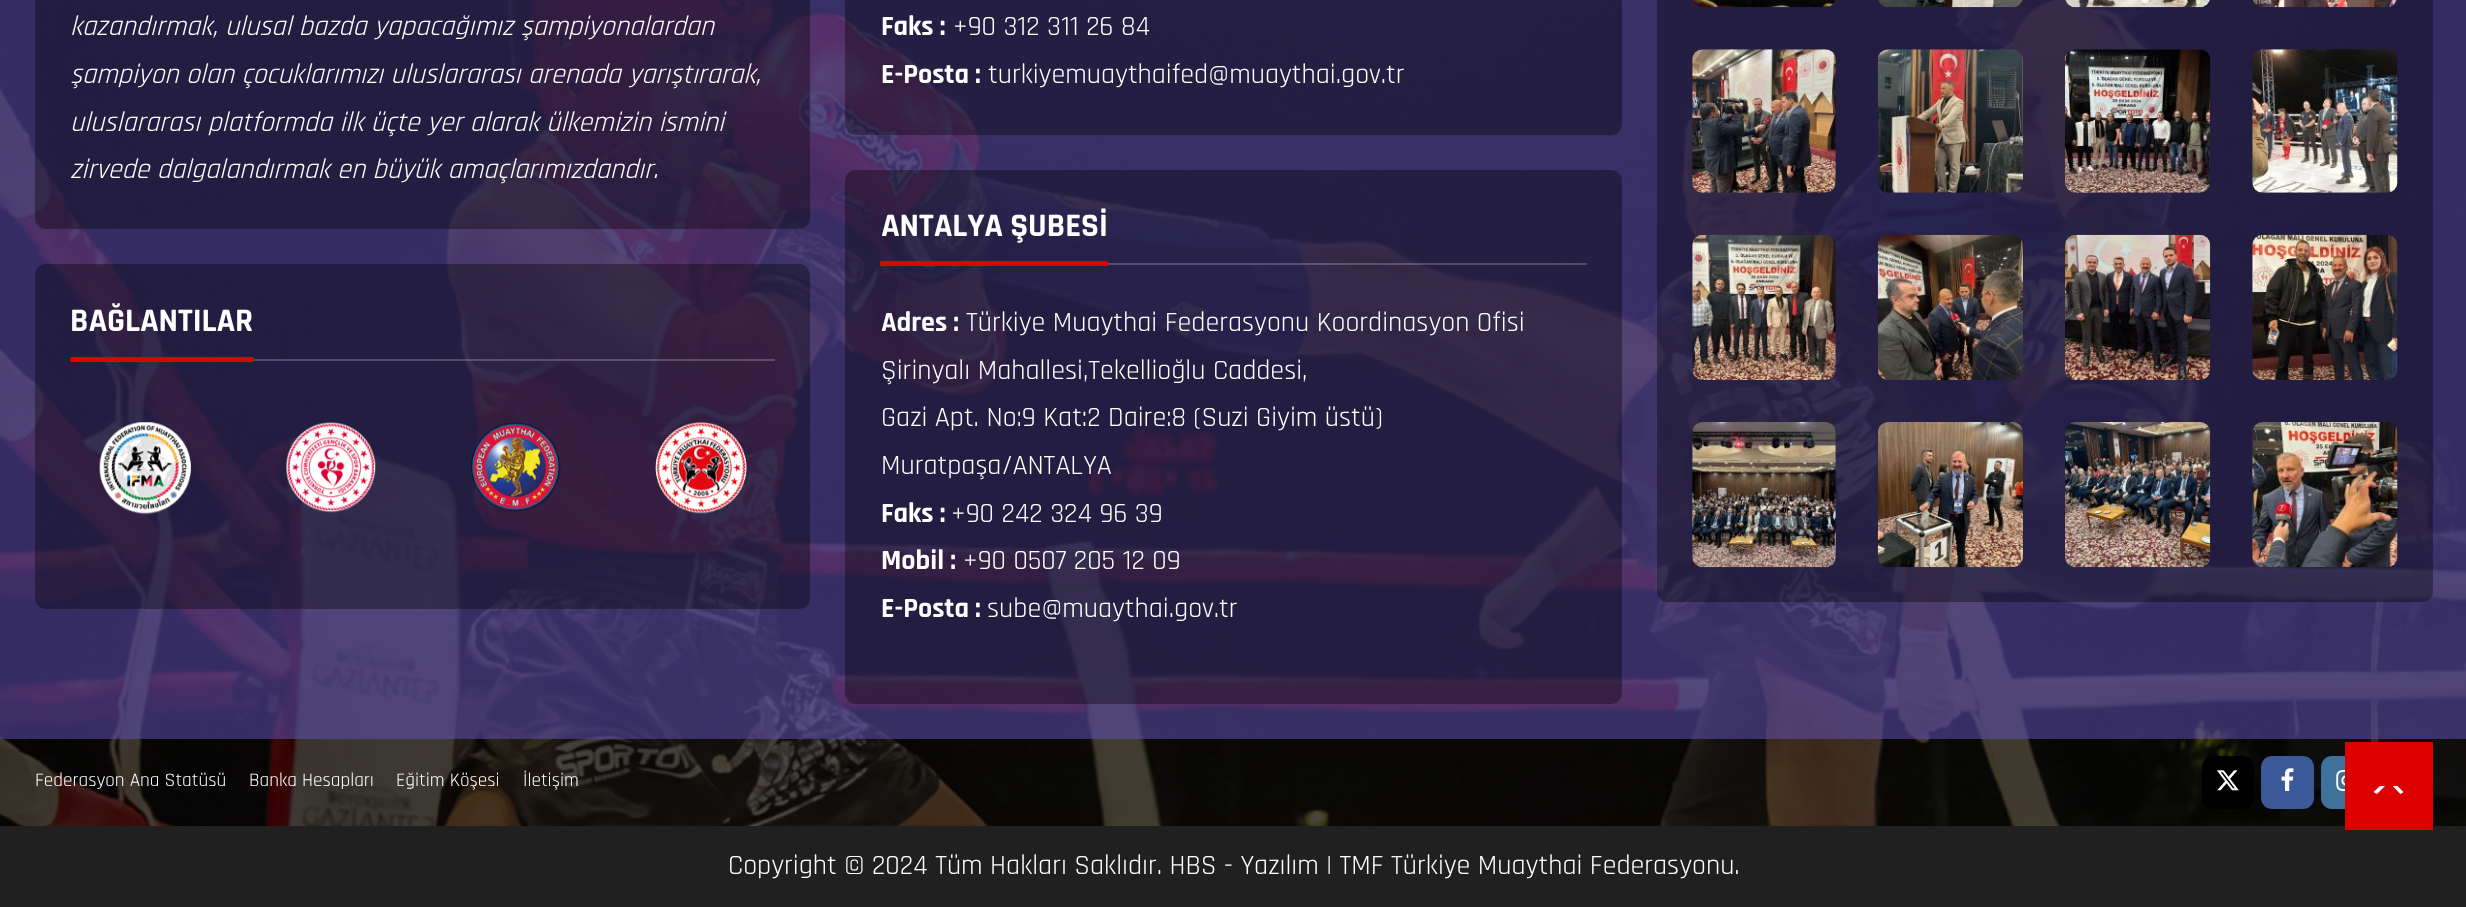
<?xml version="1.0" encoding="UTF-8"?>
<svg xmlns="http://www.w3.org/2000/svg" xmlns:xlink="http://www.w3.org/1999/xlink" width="2466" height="907">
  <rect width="100%" height="100%" fill="#ffffff" />
  <image x="0" y="0" width="2466" height="826" xlink:href="image1.png" />
  <rect width="2466" height="739" fill="#483d8b" fill-opacity="0.7" />
  <rect x="35" y="-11" width="775" height="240" rx="11" fill="#000000" fill-opacity="0.35" />
  <rect x="35" y="264" width="775" height="345" rx="11" fill="#000000" fill-opacity="0.35" />
  <rect x="254" y="359" width="521" height="2" fill="#ffffff" fill-opacity="0.2" />
  <rect x="70" y="357" width="184" height="5" fill="#dd0000" />
  <image x="99" y="422" width="92" height="93" xlink:href="image2.png" />
  <image x="286" y="422" width="90" height="91" xlink:href="image3.png" />
  <image x="471" y="422" width="90" height="90" xlink:href="image4.png" />
  <image x="655" y="422" width="92" height="92" xlink:href="image5.png" />
  <rect x="845" y="-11" width="777" height="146" rx="11" fill="#000000" fill-opacity="0.35" />
  <rect x="845" y="170" width="777" height="534" rx="11" fill="#000000" fill-opacity="0.35" />
  <rect x="1108" y="263" width="479" height="2" fill="#ffffff" fill-opacity="0.2" />
  <rect x="880" y="261" width="228" height="5" fill="#dd0000" />
  <rect x="1657" y="-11" width="776" height="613" rx="11" fill="#000000" fill-opacity="0.35" />
  <image x="1693" y="0" width="142" height="8" xlink:href="image6.png" />
  <image x="1878" y="0" width="145" height="8" xlink:href="image7.png" />
  <image x="2065" y="0" width="145" height="8" xlink:href="image8.png" />
  <image x="2253" y="0" width="144" height="8" xlink:href="image9.png" />
  <image x="1692" y="49" width="144" height="144" xlink:href="image10.png" />
  <image x="1877" y="49" width="146" height="144" xlink:href="image11.png" />
  <image x="2065" y="49" width="146" height="144" xlink:href="image12.png" />
  <image x="2252" y="49" width="146" height="144" xlink:href="image13.png" />
  <image x="1692" y="234" width="144" height="146" xlink:href="image14.png" />
  <image x="1877" y="234" width="146" height="146" xlink:href="image15.png" />
  <image x="2065" y="234" width="146" height="146" xlink:href="image16.png" />
  <image x="2252" y="234" width="146" height="146" xlink:href="image17.png" />
  <image x="1692" y="422" width="144" height="146" xlink:href="image18.png" />
  <image x="1877" y="422" width="146" height="146" xlink:href="image19.png" />
  <image x="2065" y="422" width="146" height="146" xlink:href="image20.png" />
  <image x="2252" y="422" width="146" height="146" xlink:href="image21.png" />
  <rect y="739" width="2466" height="87" fill="#000000" fill-opacity="0.35" />
  <rect x="2202" y="756" width="52" height="53" rx="11" fill="#000000" />
  <image x="2216" y="770" width="23" height="21" xlink:href="image22.png" />
  <rect x="2261" y="756" width="53" height="53" rx="11" fill="#3b5999" />
  <image x="2281" y="768" width="13" height="23" xlink:href="image23.png" />
  <rect x="2321" y="756" width="52" height="53" rx="11" fill="#3f729b" />
  <image x="2336" y="770" width="9" height="21" xlink:href="image24.png" />
  <rect y="826" width="2466" height="81" fill="#202020" />
  <rect x="2345" y="742" width="88" height="88" fill="#dd0000" />
  <path d="M 2380 794.5 h 17.5 c 2.5 0 4.5 -1 6 -2.5 l -6 -6 h -17.5 l -6.5 6 c 2 1.5 4 2.5 6.5 2.5 z" fill="#ffffff" />
  <path d="M 2406 800 h -35 l 18 -18 z" fill="#dd0000" />
  <text x="70" y="35" style="font-family: Rajdhani; font-size: 28px; font-style: italic; fill: #ffffff">kazandırmak, ulusal bazda yapacağımız şampiyonalardan</text>
  <text x="70" y="83" style="font-family: Rajdhani; font-size: 28px; font-style: italic; fill: #ffffff">şampiyon olan çocuklarımızı uluslararası arenada yarıştırarak,</text>
  <text x="70" y="131" style="font-family: Rajdhani; font-size: 28px; font-style: italic; fill: #ffffff">uluslararası platformda ilk üçte yer alarak ülkemizin ismini</text>
  <text x="70" y="178" style="font-family: Rajdhani; font-size: 28px; font-style: italic; fill: #ffffff">zirvede dalgalandırmak en büyük amaçlarımızdandır.</text>
  <text x="70" y="331" style="font-family: Rajdhani; font-size: 33.25px; font-weight: bold; fill: #ffffff">BAĞLANTILAR</text>
  <text x="881" y="35" style="font-family: Rajdhani; font-size: 28px; font-weight: bold; fill: #ffffff">Faks :</text>
  <text x="953" y="35" style="font-family: Rajdhani; font-size: 28px; fill: #ffffff">+90 312 311 26 84</text>
  <text x="881" y="83" style="font-family: Rajdhani; font-size: 28px; font-weight: bold; fill: #ffffff">E-Posta :</text>
  <text x="988" y="83" style="font-family: Rajdhani; font-size: 28px; fill: #ffffff">turkiyemuaythaifed@muaythai.gov.tr</text>
  <text x="881" y="236" style="font-family: Rajdhani; font-size: 33.25px; font-weight: bold; fill: #ffffff">ANTALYA ŞUBESİ</text>
  <text x="881" y="331" style="font-family: Rajdhani; font-size: 28px; font-weight: bold; fill: #ffffff">Adres :</text>
  <text x="966" y="331" style="font-family: Rajdhani; font-size: 28px; fill: #ffffff">Türkiye Muaythai Federasyonu Koordinasyon Ofisi</text>
  <text x="881" y="379" style="font-family: Rajdhani; font-size: 28px; fill: #ffffff">Şirinyalı Mahallesi,Tekellioğlu Caddesi,</text>
  <text x="881" y="426" style="font-family: Rajdhani; font-size: 28px; fill: #ffffff">Gazi Apt. No:9 Kat:2 Daire:8 (Suzi Giyim üstü)</text>
  <text x="881" y="474" style="font-family: Rajdhani; font-size: 28px; fill: #ffffff">Muratpaşa/ANTALYA</text>
  <text x="881" y="522" style="font-family: Rajdhani; font-size: 28px; font-weight: bold; fill: #ffffff">Faks :</text>
  <text x="951" y="522" style="font-family: Rajdhani; font-size: 28px; fill: #ffffff">+90 242 324 96 39</text>
  <text x="881" y="569" style="font-family: Rajdhani; font-size: 28px; font-weight: bold; fill: #ffffff">Mobil :</text>
  <text x="963" y="569" style="font-family: Rajdhani; font-size: 28px; fill: #ffffff">+90 0507 205 12 09</text>
  <text x="881" y="617" style="font-family: Rajdhani; font-size: 28px; font-weight: bold; fill: #ffffff">E-Posta :</text>
  <text x="987" y="617" style="font-family: Rajdhani; font-size: 28px; fill: #ffffff">sube@muaythai.gov.tr</text>
  <text x="35" y="786" style="font-family: Rajdhani; font-size: 19.25px; fill: #ffffff">Federasyon Ana Statüsü</text>
  <text x="249" y="786" style="font-family: Rajdhani; font-size: 19.25px; fill: #ffffff">Banka Hesapları</text>
  <text x="396" y="786" style="font-family: Rajdhani; font-size: 19.25px; fill: #ffffff">Eğitim Köşesi</text>
  <text x="523" y="786" style="font-family: Rajdhani; font-size: 19.25px; fill: #ffffff">İletişim</text>
  <text x="728" y="874" style="font-family: Rajdhani; font-size: 28px; fill: #ffffff">Copyright © 2024 Tüm Hakları Saklıdır. HBS - Yazılım | TMF Türkiye Muaythai Federasyonu.</text>
</svg>
